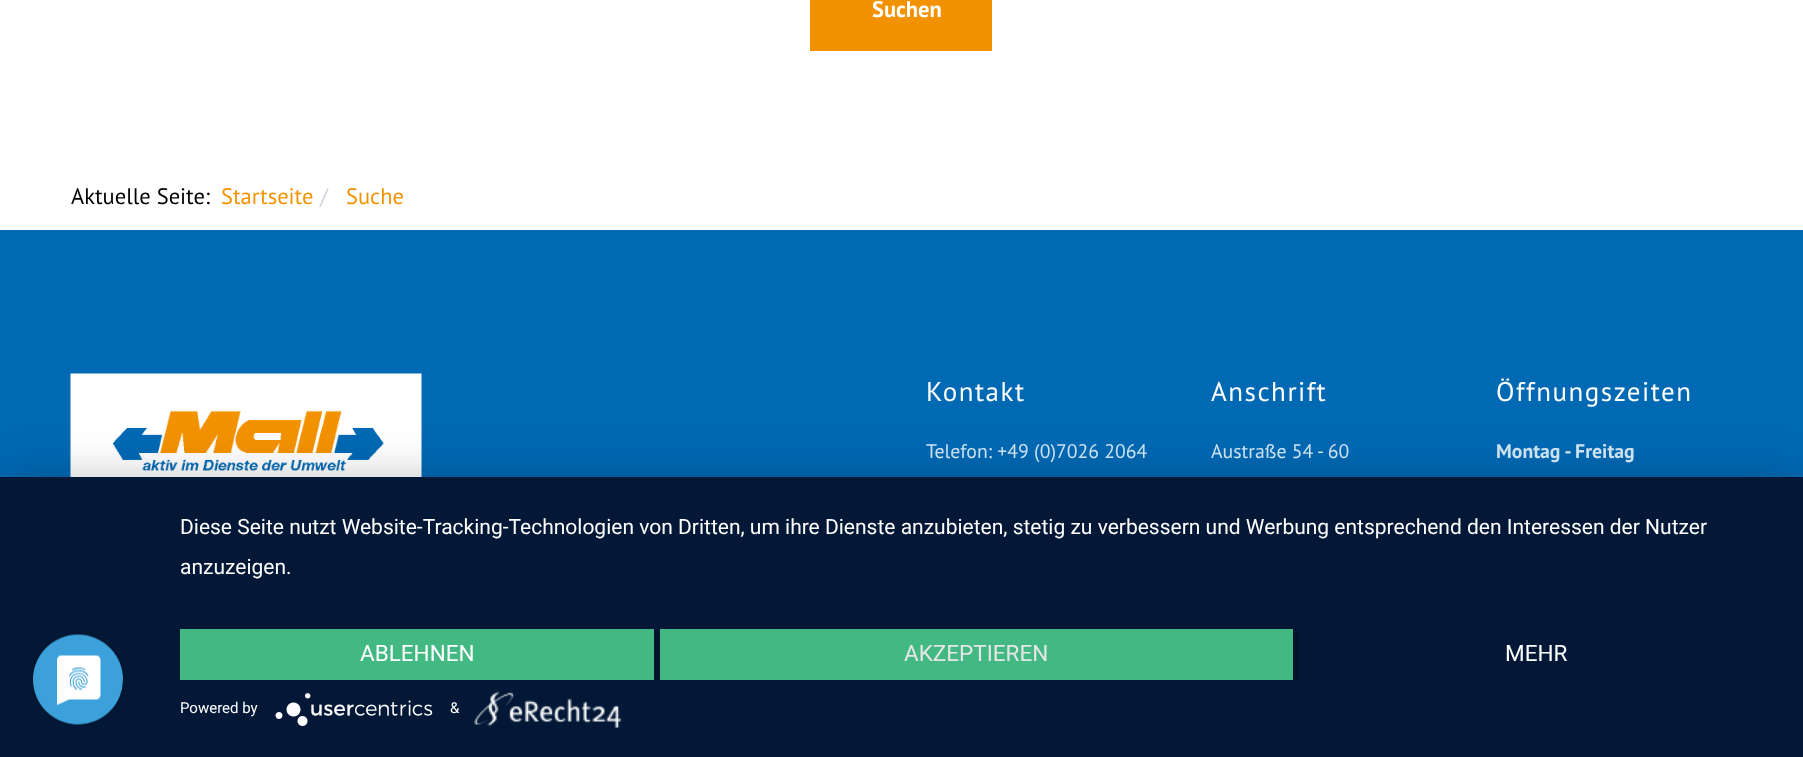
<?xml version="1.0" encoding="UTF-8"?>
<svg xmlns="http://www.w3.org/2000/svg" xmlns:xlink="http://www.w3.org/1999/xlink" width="1803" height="757">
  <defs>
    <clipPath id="clip1"><rect x="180" y="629" width="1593" height="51" /></clipPath>
  </defs>
  <rect width="100%" height="100%" fill="#ffffff" />
  <rect x="810" width="182" height="51" fill="#f39200" />
  <rect y="230" width="1803" height="247" fill="#0069b4" />
  <rect x="421" y="444" width="1" height="2" fill="#1a78bc" />
  <image x="70" y="373" width="352" height="104" xlink:href="image1.png" />
  <rect y="486" width="1803" height="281" fill="#000000" fill-opacity="0.3" filter="blur(27px)" />
  <rect y="477" width="1803" height="280" fill="#021836" />
  <image x="32" y="633" width="92" height="93" xlink:href="image2.png" />
  <g clip-path="url(#clip1)">
    <rect x="180" y="630" width="474" height="51" fill="#000000" fill-opacity="0.4" filter="blur(3px)" />
  </g>
  <rect x="180" y="629" width="474" height="51" fill="#42b983" />
  <g clip-path="url(#clip1)">
    <rect x="660" y="630" width="633" height="51" fill="#000000" fill-opacity="0.4" filter="blur(3px)" />
  </g>
  <rect x="660" y="629" width="633" height="51" fill="#42b983" />
  <g clip-path="url(#clip1)">
    <rect x="1299" y="630" width="474" height="51" fill="#000000" fill-opacity="0.4" filter="blur(3px)" />
  </g>
  <rect x="1299" y="629" width="474" height="51" fill="#021836" />
  <image x="275" y="693" width="158" height="33" xlink:href="image3.png" />
  <image x="474" y="691" width="148" height="37" xlink:href="image4.png" />
  <text x="872" y="17" style="font-family: PT Sans; font-size: 22.5px; font-weight: bold; fill: #ffffff">Suchen</text>
  <text x="71" y="204" style="font-family: PT Sans; font-size: 22.5px; fill: #000000">Aktuelle Seite:</text>
  <text x="221" y="204" style="font-family: PT Sans; font-size: 22.5px; fill: #f39200">Startseite</text>
  <text x="320" y="204" style="font-family: PT Sans; font-size: 22.5px; fill: #ced4da">/</text>
  <text x="346" y="204" style="font-family: PT Sans; font-size: 22.5px; fill: #f39200">Suche</text>
  <text x="926" y="401" style="font-family: PT Sans; font-size: 27px; letter-spacing: 1.5px; fill: #ffffff">Kontakt</text>
  <text x="926" y="458" style="font-family: PT Sans; font-size: 19.75px; fill: #cce1f0">Telefon: +49 (0)7026 2064</text>
  <text x="1211" y="401" style="font-family: PT Sans; font-size: 27px; letter-spacing: 1.5px; fill: #ffffff">Anschrift</text>
  <text x="1211" y="458" style="font-family: PT Sans; font-size: 19.75px; fill: #cce1f0">Austraße 54 - 60</text>
  <text x="1496" y="401" style="font-family: PT Sans; font-size: 27px; letter-spacing: 1.5px; fill: #ffffff">Öffnungszeiten</text>
  <text x="1496" y="458" style="font-family: PT Sans; font-size: 19.75px; font-weight: bold; fill: #cce1f0">Montag - Freitag</text>
  <text x="180" y="534" style="font-family: Roboto; font-size: 21px; fill: #ffffff">Diese Seite nutzt Website-Tracking-Technologien von Dritten, um ihre Dienste anzubieten, stetig zu verbessern und Werbung entsprechend den Interessen der Nutzer</text>
  <text x="180" y="574" style="font-family: Roboto; font-size: 21px; fill: #ffffff">anzuzeigen.</text>
  <text x="360" y="661" style="font-family: Roboto; font-size: 22.5px; fill: #ffffff">ABLEHNEN</text>
  <text x="904" y="661" style="font-family: Roboto; font-size: 22.5px; fill: #e6e6e6">AKZEPTIEREN</text>
  <text x="1505" y="661" style="font-family: Roboto; font-size: 22.5px; fill: #ffffff">MEHR</text>
  <text x="180" y="713" style="font-family: Roboto; font-size: 15px; fill: #ffffff">Powered by</text>
  <text x="450" y="713" style="font-family: Roboto; font-size: 15px; fill: #ffffff">&amp;</text>
</svg>
